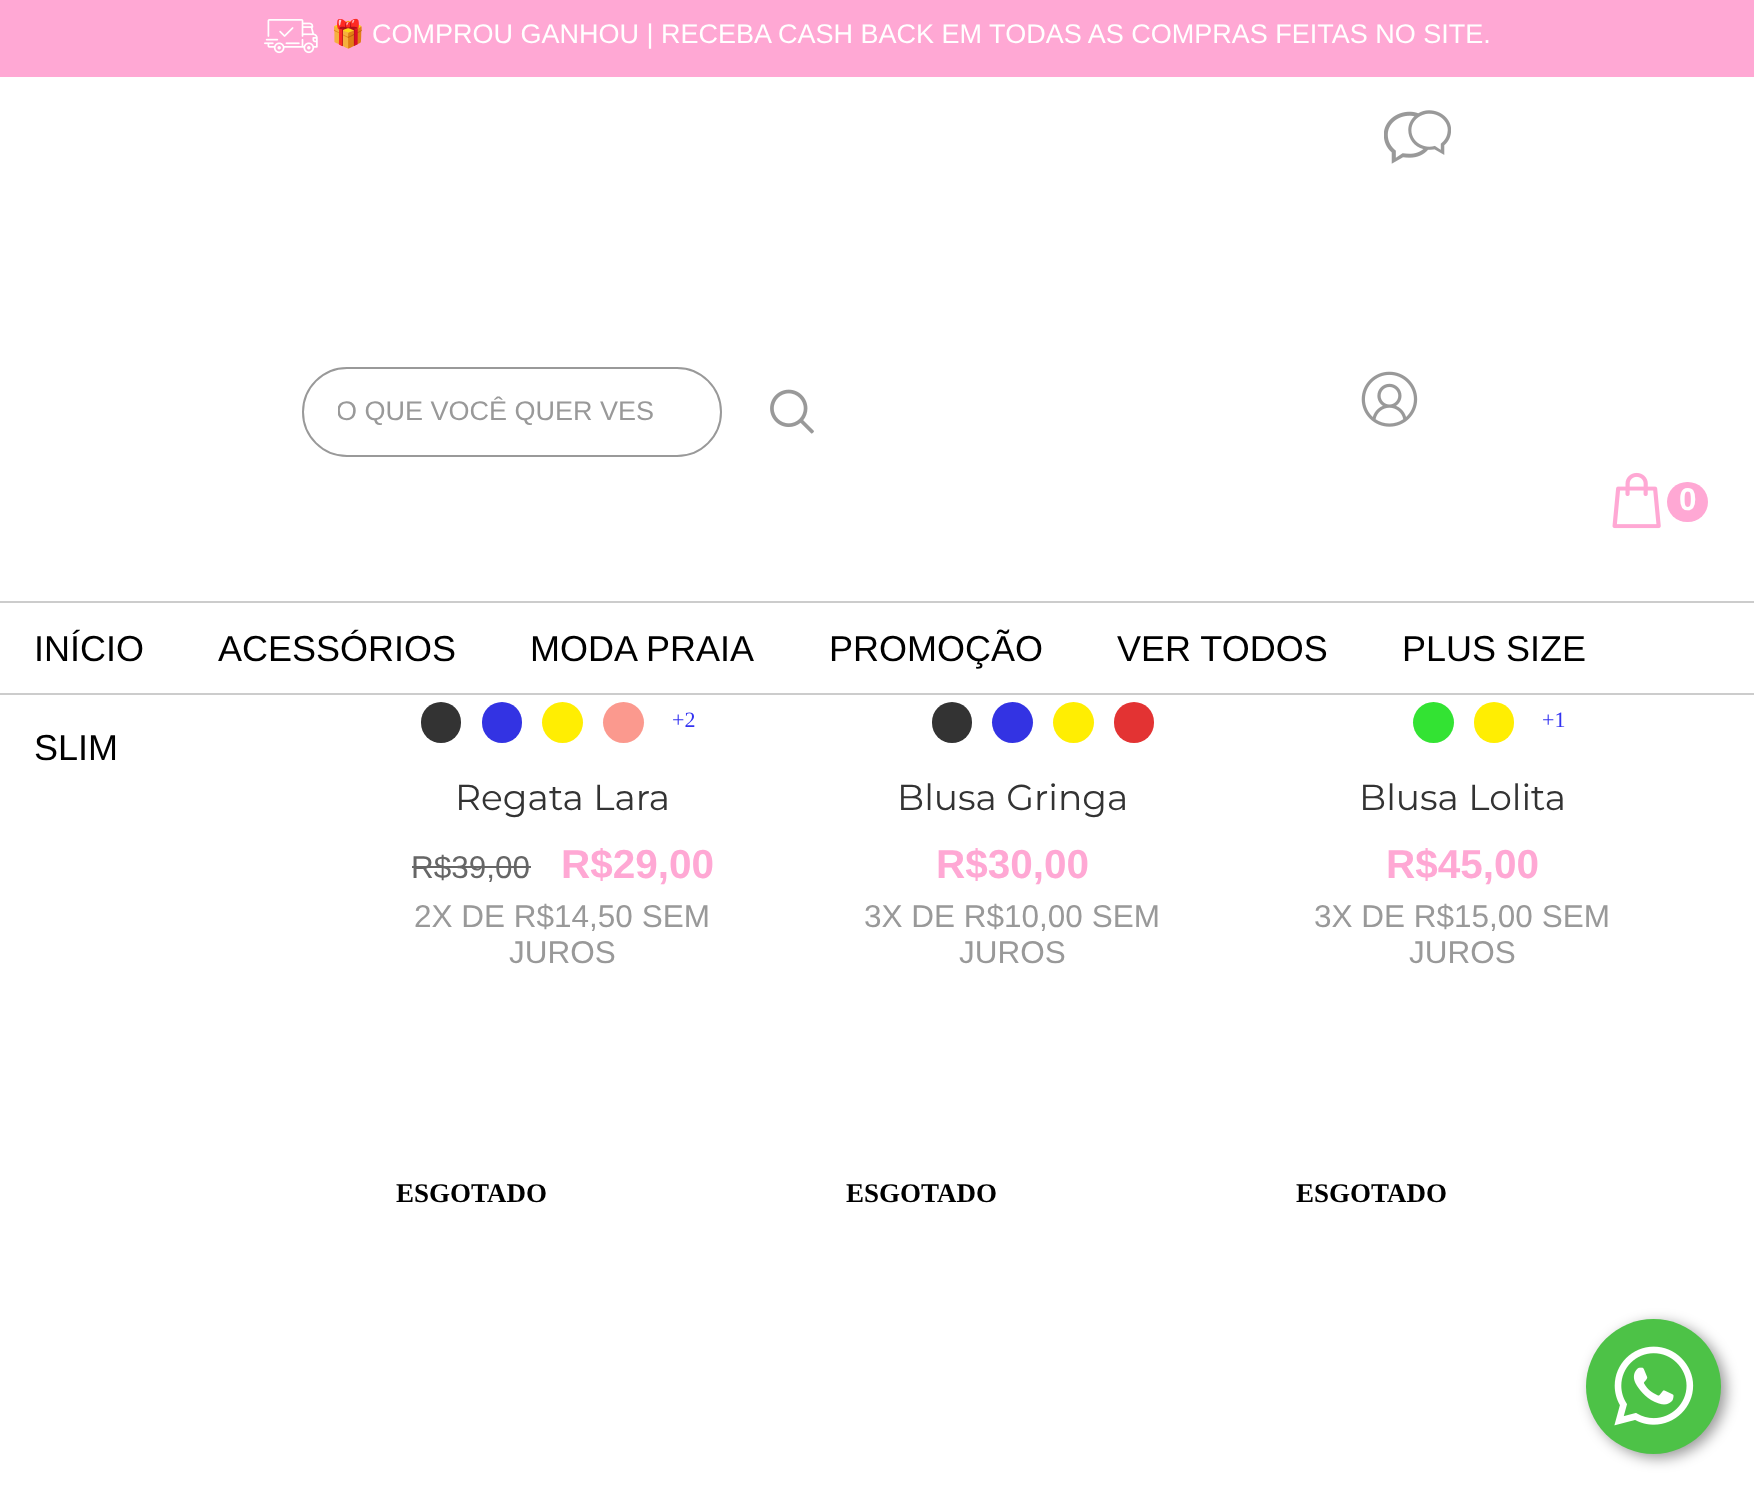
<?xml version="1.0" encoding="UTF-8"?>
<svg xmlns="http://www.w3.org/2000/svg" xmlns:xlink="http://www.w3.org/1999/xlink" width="1754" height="1487">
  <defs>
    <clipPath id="clip1"><rect x="338" y="396" width="321" height="32" /></clipPath>
  </defs>
  <rect width="100%" height="100%" fill="#ffffff" />
  <rect width="1754" height="77" fill="#ffa8d4" />
  <image x="264" y="19" width="54" height="35" xlink:href="image1.png" />
  <rect x="303" y="368" width="418" height="88" rx="44" fill="none" stroke="#999999" stroke-width="2" />
  <image x="770" y="389" width="44" height="45" xlink:href="image2.png" />
  <image x="1384" y="110" width="67" height="54" xlink:href="image3.png" />
  <image x="1361" y="371" width="57" height="56" xlink:href="image4.png" />
  <image x="1612" y="472" width="49" height="57" xlink:href="image5.png" />
  <rect x="1667" y="482" width="41" height="40" rx="20" fill="#ffa8d4" />
  <rect y="601" width="1754" height="2" fill="#cccccc" />
  <rect y="693" width="1754" height="2" fill="#cccccc" />
  <rect x="421" y="702" width="40" height="41" rx="20" fill="#333333" />
  <rect x="482" y="702" width="40" height="41" rx="20" fill="#3333e3" />
  <circle cx="562.5" cy="722.5" r="20.5" fill="#ffee02" />
  <circle cx="623.5" cy="722.5" r="20.5" fill="#fb998e" />
  <rect x="412" y="866" width="119" height="2" fill="#666666" />
  <rect x="932" y="702" width="40" height="41" rx="20" fill="#333333" />
  <circle cx="1012.5" cy="722.5" r="20.5" fill="#3333e3" />
  <circle cx="1073.5" cy="722.5" r="20.5" fill="#ffee02" />
  <rect x="1114" y="702" width="40" height="41" rx="20" fill="#e33333" />
  <circle cx="1433.5" cy="722.5" r="20.5" fill="#33e333" />
  <rect x="1474" y="702" width="40" height="41" rx="20" fill="#ffee02" />
  <rect x="1591" y="1323" width="135" height="135" rx="67.5" fill="#000000" fill-opacity="0.4" filter="blur(7px)" />
  <circle cx="1653.5" cy="1386.5" r="67.5" fill="#4dc247" />
  <image x="1614" y="1346" width="80" height="80" xlink:href="image6.png" />
  <text x="331" y="43" style="font-family: Noto Color Emoji; font-size: 27px; fill: #ffffff">🎁</text>
  <text x="372" y="43" style="font-family: Liberation Sans; font-size: 27px; fill: #ffffff">COMPROU GANHOU | RECEBA CASH BACK EM TODAS AS COMPRAS FEITAS NO SITE.</text>
  <g clip-path="url(#clip1)">
    <text x="336" y="420" style="font-family: Liberation Sans; font-size: 27px; fill: #999999">O QUE VOCÊ QUER VES</text>
  </g>
  <text x="1679" y="510" style="font-family: Liberation Sans; font-size: 31.5px; font-weight: bold; fill: #ffffff">0</text>
  <text x="34" y="661" style="font-family: Liberation Sans; font-size: 36px; fill: #000000">INÍCIO</text>
  <text x="218" y="661" style="font-family: Liberation Sans; font-size: 36px; fill: #000000">ACESSÓRIOS</text>
  <text x="530" y="661" style="font-family: Liberation Sans; font-size: 36px; fill: #000000">MODA PRAIA</text>
  <text x="829" y="661" style="font-family: Liberation Sans; font-size: 36px; fill: #000000">PROMOÇÃO</text>
  <text x="1117" y="661" style="font-family: Liberation Sans; font-size: 36px; fill: #000000">VER TODOS</text>
  <text x="1402" y="661" style="font-family: Liberation Sans; font-size: 36px; fill: #000000">PLUS SIZE</text>
  <text x="34" y="760" style="font-family: Liberation Sans; font-size: 36px; fill: #000000">SLIM</text>
  <text x="672" y="727" style="font-family: Liberation Serif; font-size: 22px; fill: #3333f1">+2</text>
  <text x="455" y="810" style="font-family: Montserrat; font-size: 36px; fill: #333333">Regata Lara</text>
  <text x="411" y="878" style="font-family: Liberation Sans; font-size: 31.5px; fill: #666666">R$39,00</text>
  <text x="561" y="878" style="font-family: Liberation Sans; font-size: 40.5px; font-weight: bold; fill: #ffa8d4">R$29,00</text>
  <text x="414" y="927" style="font-family: Liberation Sans; font-size: 31.5px; fill: #999999">2X DE R$14,50 SEM</text>
  <text x="509" y="963" style="font-family: Liberation Sans; font-size: 31.5px; fill: #999999">JUROS</text>
  <text x="897" y="810" style="font-family: Montserrat; font-size: 36px; fill: #333333">Blusa Gringa</text>
  <text x="936" y="878" style="font-family: Liberation Sans; font-size: 40.5px; font-weight: bold; fill: #ffa8d4">R$30,00</text>
  <text x="864" y="927" style="font-family: Liberation Sans; font-size: 31.5px; fill: #999999">3X DE R$10,00 SEM</text>
  <text x="959" y="963" style="font-family: Liberation Sans; font-size: 31.5px; fill: #999999">JUROS</text>
  <text x="1542" y="727" style="font-family: Liberation Serif; font-size: 22px; fill: #3333f1">+1</text>
  <text x="1359" y="810" style="font-family: Montserrat; font-size: 36px; fill: #333333">Blusa Lolita</text>
  <text x="1386" y="878" style="font-family: Liberation Sans; font-size: 40.5px; font-weight: bold; fill: #ffa8d4">R$45,00</text>
  <text x="1314" y="927" style="font-family: Liberation Sans; font-size: 31.5px; fill: #999999">3X DE R$15,00 SEM</text>
  <text x="1409" y="963" style="font-family: Liberation Sans; font-size: 31.5px; fill: #999999">JUROS</text>
  <text x="396" y="1202" style="font-family: Liberation Serif; font-size: 27px; font-weight: bold; fill: #000000">ESGOTADO</text>
  <text x="846" y="1202" style="font-family: Liberation Serif; font-size: 27px; font-weight: bold; fill: #000000">ESGOTADO</text>
  <text x="1296" y="1202" style="font-family: Liberation Serif; font-size: 27px; font-weight: bold; fill: #000000">ESGOTADO</text>
</svg>
